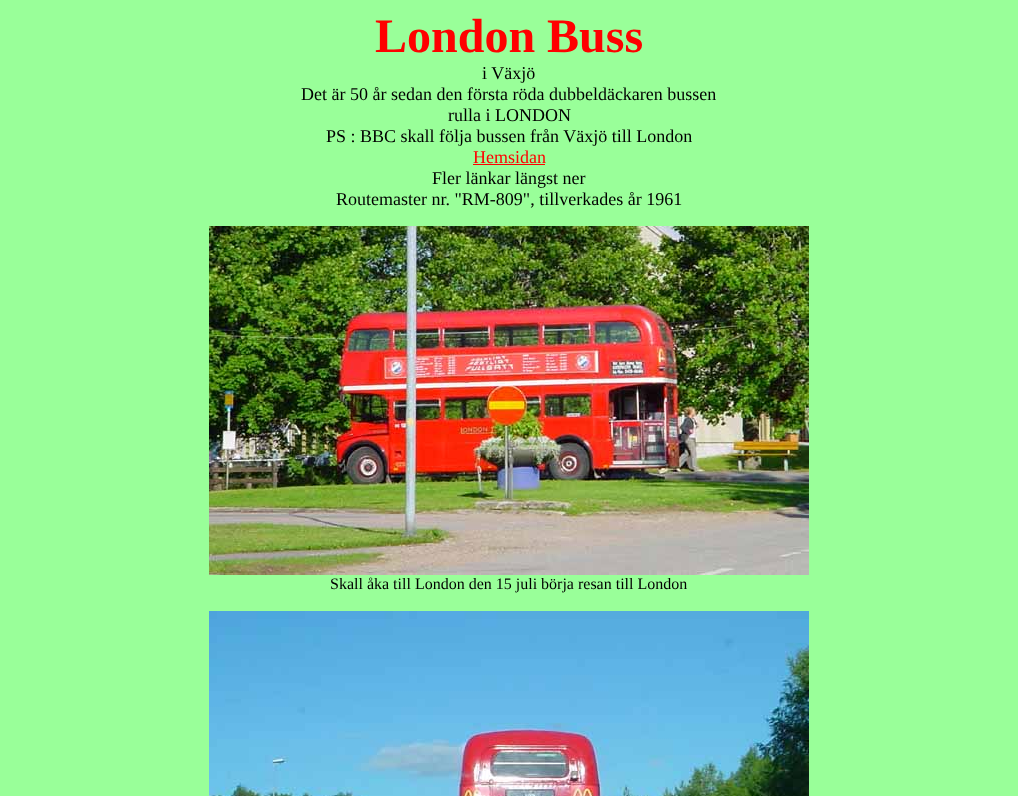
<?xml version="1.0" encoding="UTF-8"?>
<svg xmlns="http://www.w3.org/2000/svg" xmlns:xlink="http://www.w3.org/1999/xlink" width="1018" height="796">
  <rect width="100%" height="100%" fill="#99ff99" />
  <rect x="473" y="164" width="72" height="1" fill="#ff0000" />
  <image x="209" y="226" width="600" height="349" xlink:href="image1.png" />
  <image x="209" y="611" width="600" height="185" xlink:href="image2.png" />
  <text x="375" y="52" style="font-family: Liberation Serif; font-size: 48px; font-weight: bold; fill: #ff0000">London Buss</text>
  <text x="482" y="79" style="font-family: Liberation Serif; font-size: 18px; fill: #000000">i Växjö</text>
  <text x="301" y="100" style="font-family: Liberation Serif; font-size: 18px; fill: #000000">Det är 50 år sedan den första röda dubbeldäckaren bussen</text>
  <text x="448" y="121" style="font-family: Liberation Serif; font-size: 18px; fill: #000000">rulla i LONDON</text>
  <text x="326" y="142" style="font-family: Liberation Serif; font-size: 18px; fill: #000000">PS : BBC skall följa bussen från Växjö till London</text>
  <text x="473" y="163" style="font-family: Liberation Serif; font-size: 18px; fill: #ff0000">Hemsidan</text>
  <text x="432" y="184" style="font-family: Liberation Serif; font-size: 18px; fill: #000000">Fler länkar längst ner</text>
  <text x="336" y="205" style="font-family: Liberation Serif; font-size: 18px; fill: #000000">Routemaster nr. "RM-809", tillverkades år 1961</text>
  <text x="330" y="589" style="font-family: Liberation Serif; font-size: 16px; fill: #000000">Skall åka till London den 15 juli börja resan till London</text>
</svg>
